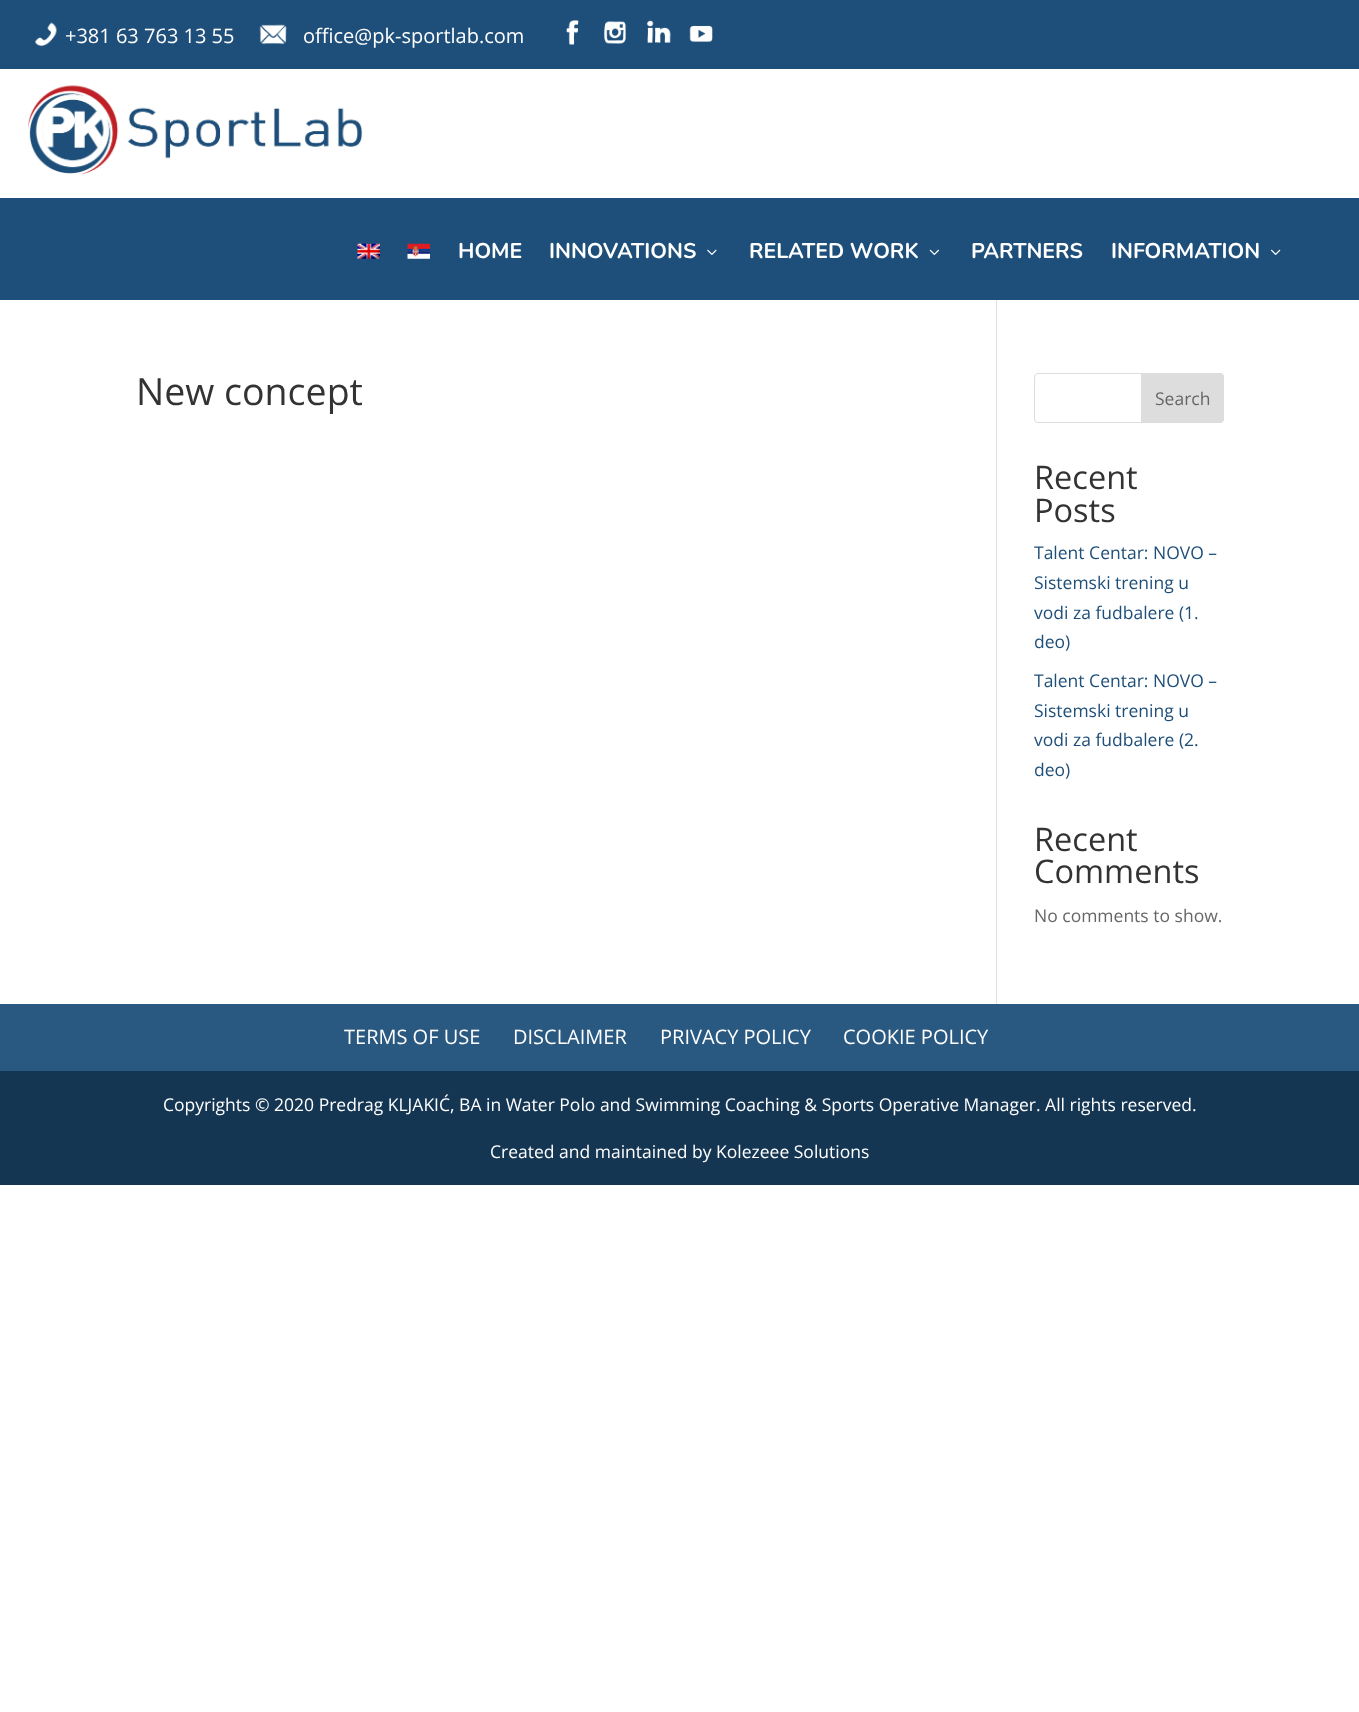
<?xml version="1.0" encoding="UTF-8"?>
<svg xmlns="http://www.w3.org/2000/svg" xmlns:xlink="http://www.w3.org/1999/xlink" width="1359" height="1712">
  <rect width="100%" height="100%" fill="#ffffff" />
  <rect width="1359" height="69" fill="#1e4f7a" />
  <image x="35" y="22" width="22" height="25" xlink:href="image1.png" />
  <image x="259" y="24" width="28" height="21" xlink:href="image2.png" />
  <image x="566" y="20" width="13" height="25" xlink:href="image3.png" />
  <image x="604" y="21" width="22" height="23" xlink:href="image4.png" />
  <image x="647" y="20" width="24" height="23" xlink:href="image5.png" />
  <image x="689" y="25" width="24" height="17" xlink:href="image6.png" />
  <image x="28" y="85" width="335" height="90" xlink:href="image7.png" />
  <rect y="198" width="1359" height="102" fill="#1e4f7a" />
  <image x="357" y="243" width="23" height="16" xlink:href="image8.png" />
  <image x="407" y="243" width="23" height="16" xlink:href="image9.png" />
  <image x="707" y="249" width="10" height="6" xlink:href="image10.png" />
  <image x="929" y="249" width="10" height="6" xlink:href="image11.png" />
  <image x="1271" y="249" width="10" height="6" xlink:href="image12.png" />
  <rect x="996" y="300" width="1" height="704" fill="#e2e2e2" />
  <rect x="1034.5" y="373.5" width="189" height="49" rx="3.5" fill="none" stroke="#dddddd" />
  <path d="M 1141.5 373.5 h 78.5 c 2 0 3.5 1.5 3.5 3.5 v 42 c 0 2 -1.5 3.5 -3.5 3.5 h -78.5 z" fill="#dddddd" stroke="#dddddd" />
  <rect y="1004" width="1359" height="67" fill="#295881" />
  <rect y="1071" width="1359" height="114" fill="#143653" />
  <text x="65" y="43" style="font-family: Open Sans; font-size: 20px; fill: #ffffff">+381 63 763 13 55</text>
  <text x="303" y="43" style="font-family: Open Sans; font-size: 20px; fill: #ffffff">office@pk-sportlab.com</text>
  <text x="458" y="258" style="font-family: Nunito; font-size: 21.25px; font-weight: bold; fill: #ffffff">HOME</text>
  <text x="549" y="258" style="font-family: Nunito; font-size: 21.25px; font-weight: bold; fill: #ffffff">INNOVATIONS</text>
  <text x="749" y="258" style="font-family: Nunito; font-size: 21.25px; font-weight: bold; fill: #ffffff">RELATED WORK</text>
  <text x="971" y="258" style="font-family: Nunito; font-size: 21.25px; font-weight: bold; fill: #ffffff">PARTNERS</text>
  <text x="1111" y="258" style="font-family: Nunito; font-size: 21.25px; font-weight: bold; fill: #ffffff">INFORMATION</text>
  <text x="136" y="405" style="font-family: Open Sans; font-size: 37.5px; fill: #333333">New concept</text>
  <text x="1155" y="405" style="font-family: Open Sans; font-size: 17.5px; fill: #666666">Search</text>
  <text x="1034" y="489" style="font-family: Open Sans; font-size: 32.5px; fill: #333333">Recent</text>
  <text x="1034" y="522" style="font-family: Open Sans; font-size: 32.5px; fill: #333333">Posts</text>
  <text x="1034" y="559" style="font-family: Open Sans; font-size: 17.5px; fill: #1e4f7a">Talent Centar: NOVO –</text>
  <text x="1034" y="589" style="font-family: Open Sans; font-size: 17.5px; fill: #1e4f7a">Sistemski trening u</text>
  <text x="1034" y="619" style="font-family: Open Sans; font-size: 17.5px; fill: #1e4f7a">vodi za fudbalere (1.</text>
  <text x="1034" y="648" style="font-family: Open Sans; font-size: 17.5px; fill: #1e4f7a">deo)</text>
  <text x="1034" y="687" style="font-family: Open Sans; font-size: 17.5px; fill: #1e4f7a">Talent Centar: NOVO –</text>
  <text x="1034" y="717" style="font-family: Open Sans; font-size: 17.5px; fill: #1e4f7a">Sistemski trening u</text>
  <text x="1034" y="746" style="font-family: Open Sans; font-size: 17.5px; fill: #1e4f7a">vodi za fudbalere (2.</text>
  <text x="1034" y="776" style="font-family: Open Sans; font-size: 17.5px; fill: #1e4f7a">deo)</text>
  <text x="1034" y="851" style="font-family: Open Sans; font-size: 32.5px; fill: #333333">Recent</text>
  <text x="1034" y="883" style="font-family: Open Sans; font-size: 32.5px; fill: #333333">Comments</text>
  <text x="1034" y="922" style="font-family: Open Sans; font-size: 17.5px; fill: #666666">No comments to show.</text>
  <text x="344" y="1044" style="font-family: Open Sans; font-size: 20px; fill: #ffffff">TERMS OF USE</text>
  <text x="513" y="1044" style="font-family: Open Sans; font-size: 20px; fill: #ffffff">DISCLAIMER</text>
  <text x="660" y="1044" style="font-family: Open Sans; font-size: 20px; fill: #ffffff">PRIVACY POLICY</text>
  <text x="843" y="1044" style="font-family: Open Sans; font-size: 20px; fill: #ffffff">COOKIE POLICY</text>
  <text x="163" y="1111" style="font-family: Open Sans; font-size: 17.5px; fill: #ffffff">Copyrights © 2020 Predrag KLJAKIĆ, BA in Water Polo and Swimming Coaching &amp; Sports Operative Manager. All rights reserved.</text>
  <text x="490" y="1158" style="font-family: Open Sans; font-size: 17.5px; fill: #ffffff">Created and maintained by Kolezeee Solutions</text>
</svg>
